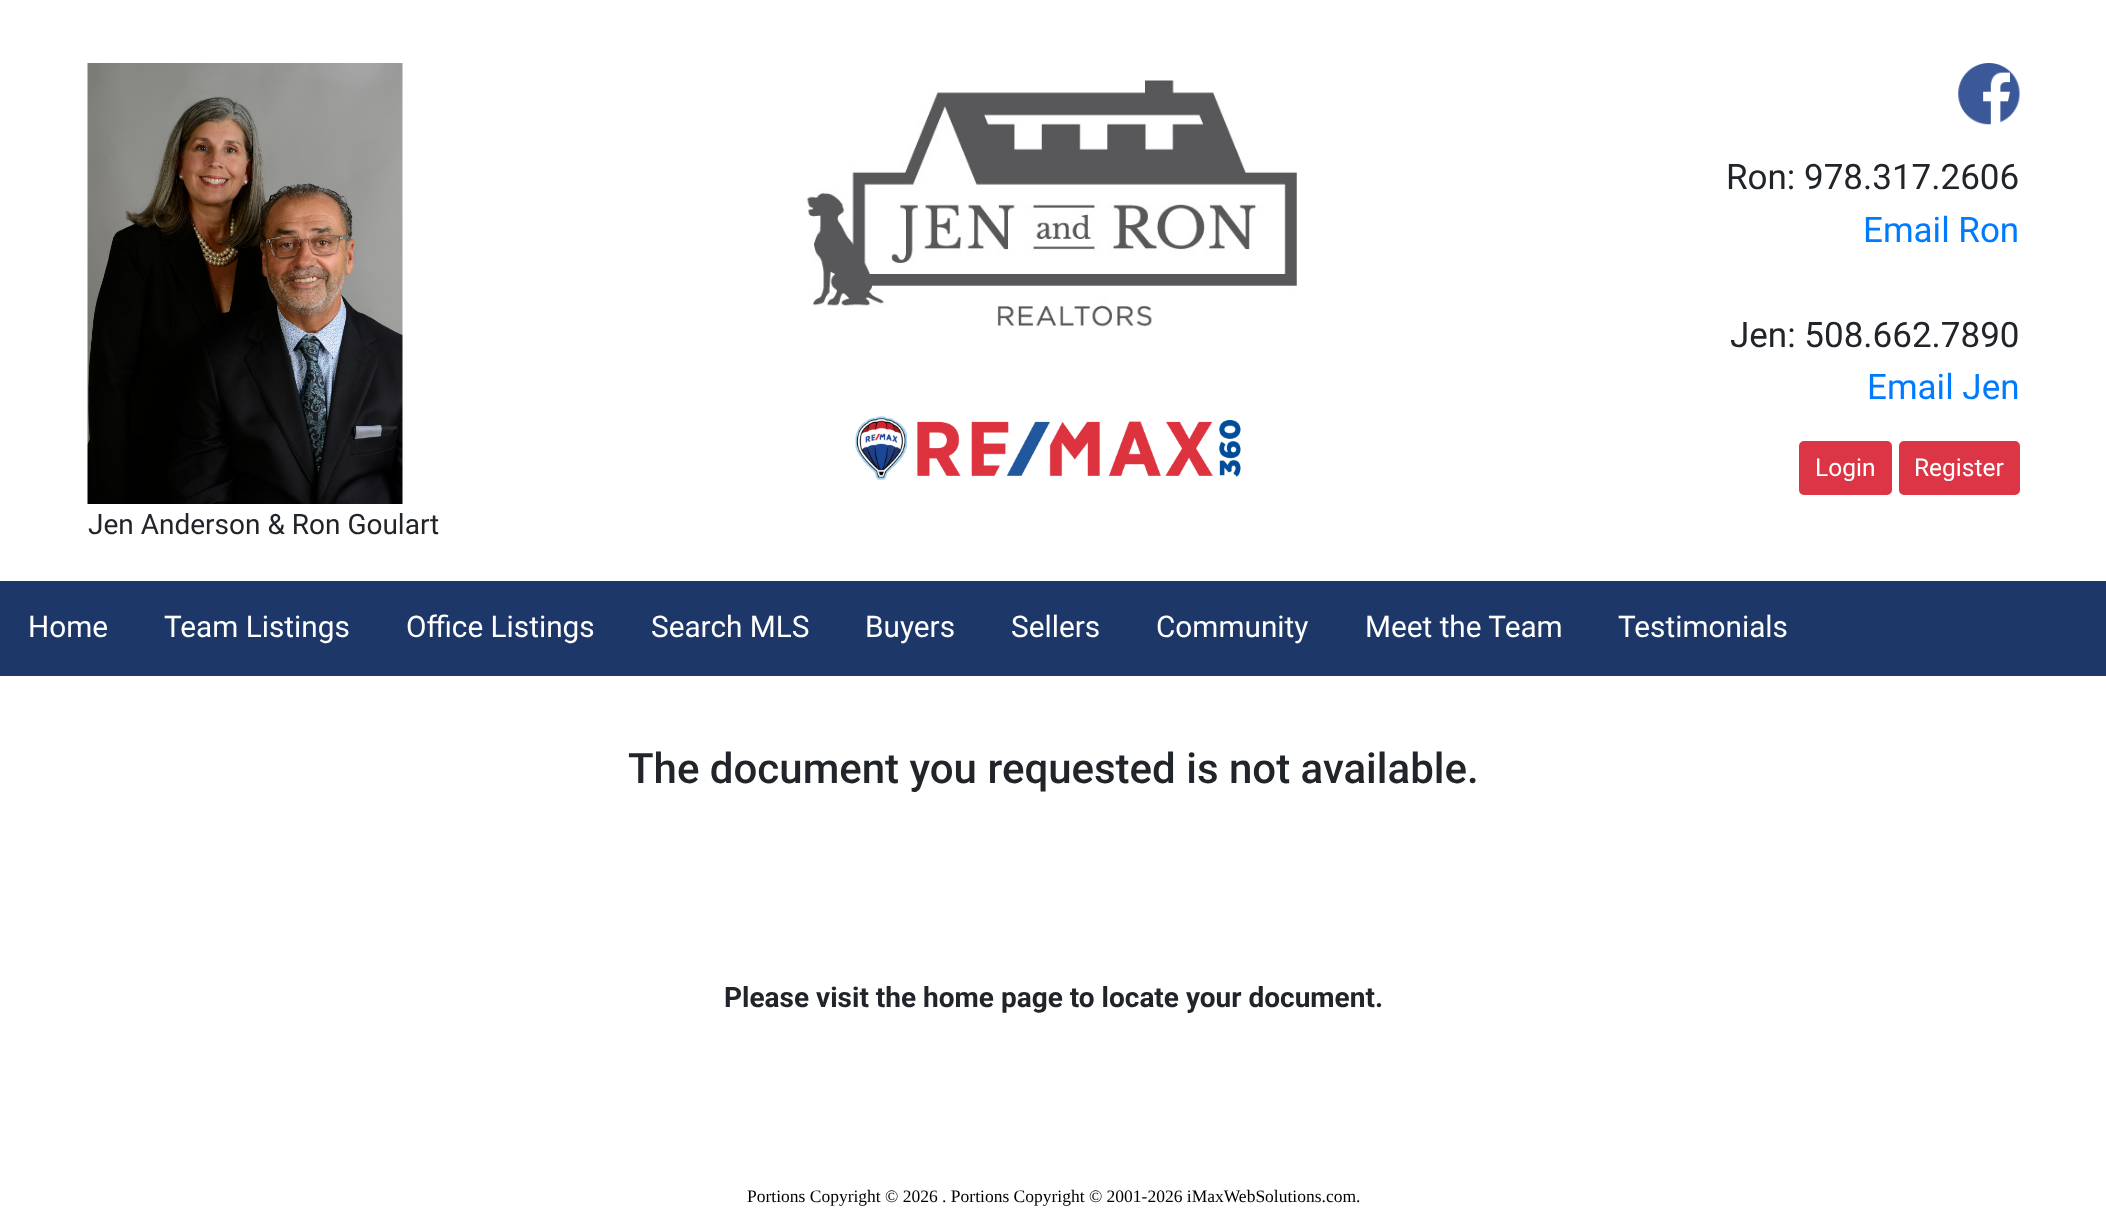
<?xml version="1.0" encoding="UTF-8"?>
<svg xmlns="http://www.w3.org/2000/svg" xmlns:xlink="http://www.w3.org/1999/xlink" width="2106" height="1225">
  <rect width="100%" height="100%" fill="#ffffff" />
  <image x="807" y="80" width="490" height="247" xlink:href="image1.png" />
  <image x="855" y="416" width="386" height="65" xlink:href="image2.png" />
  <image x="1958" y="63" width="62" height="62" xlink:href="image3.png" />
  <rect x="1800" y="442" width="91" height="52" rx="4" fill="#dc3545" stroke="#dc3545" stroke-width="2" />
  <rect x="1900" y="442" width="119" height="52" rx="4" fill="#dc3545" stroke="#dc3545" stroke-width="2" />
  <image x="87" y="63" width="316" height="441" xlink:href="image4.png" />
  <rect y="581" width="2106" height="95" fill="#1d3768" />
  <text x="1726" y="189" style="font-family: Roboto; font-size: 35px; fill: #212529">Ron: 978.317.2606</text>
  <text x="1863" y="242" style="font-family: Roboto; font-size: 35px; fill: #007bff">Email Ron</text>
  <text x="1730" y="347" style="font-family: Roboto; font-size: 35px; fill: #212529">Jen: 508.662.7890</text>
  <text x="1867" y="399" style="font-family: Roboto; font-size: 35px; fill: #007bff">Email Jen</text>
  <text x="1815" y="476" style="font-family: Roboto; font-size: 24.5px; fill: #ffffff">Login</text>
  <text x="1914" y="476" style="font-family: Roboto; font-size: 24.5px; fill: #ffffff">Register</text>
  <text x="88" y="534" style="font-family: Roboto; font-size: 28px; fill: #212529">Jen Anderson &amp; Ron Goulart</text>
  <text x="28" y="637" style="font-family: Roboto; font-size: 29.75px; fill: #ffffff">Home</text>
  <text x="164" y="637" style="font-family: Roboto; font-size: 29.75px; fill: #ffffff">Team Listings</text>
  <text x="406" y="637" style="font-family: Roboto; font-size: 29.75px; fill: #ffffff">Office Listings</text>
  <text x="651" y="637" style="font-family: Roboto; font-size: 29.75px; fill: #ffffff">Search MLS</text>
  <text x="865" y="637" style="font-family: Roboto; font-size: 29.75px; fill: #ffffff">Buyers</text>
  <text x="1011" y="637" style="font-family: Roboto; font-size: 29.75px; fill: #ffffff">Sellers</text>
  <text x="1156" y="637" style="font-family: Roboto; font-size: 29.75px; fill: #ffffff">Community</text>
  <text x="1365" y="637" style="font-family: Roboto; font-size: 29.75px; fill: #ffffff">Meet the Team</text>
  <text x="1618" y="637" style="font-family: Roboto; font-size: 29.75px; fill: #ffffff">Testimonials</text>
  <text x="628" y="783" style="font-family: Roboto; font-size: 42px; font-weight: 500; fill: #212529">The document you requested is not available.</text>
  <text x="724" y="1007" style="font-family: Roboto; font-size: 28px; font-weight: bold; fill: #212529">Please visit the home page to locate your document.</text>
  <text x="747" y="1202" style="font-family: Liberation Serif; font-size: 17.5px; fill: #000000">Portions Copyright © 2026 . Portions Copyright © 2001-2026 iMaxWebSolutions.com.</text>
</svg>
